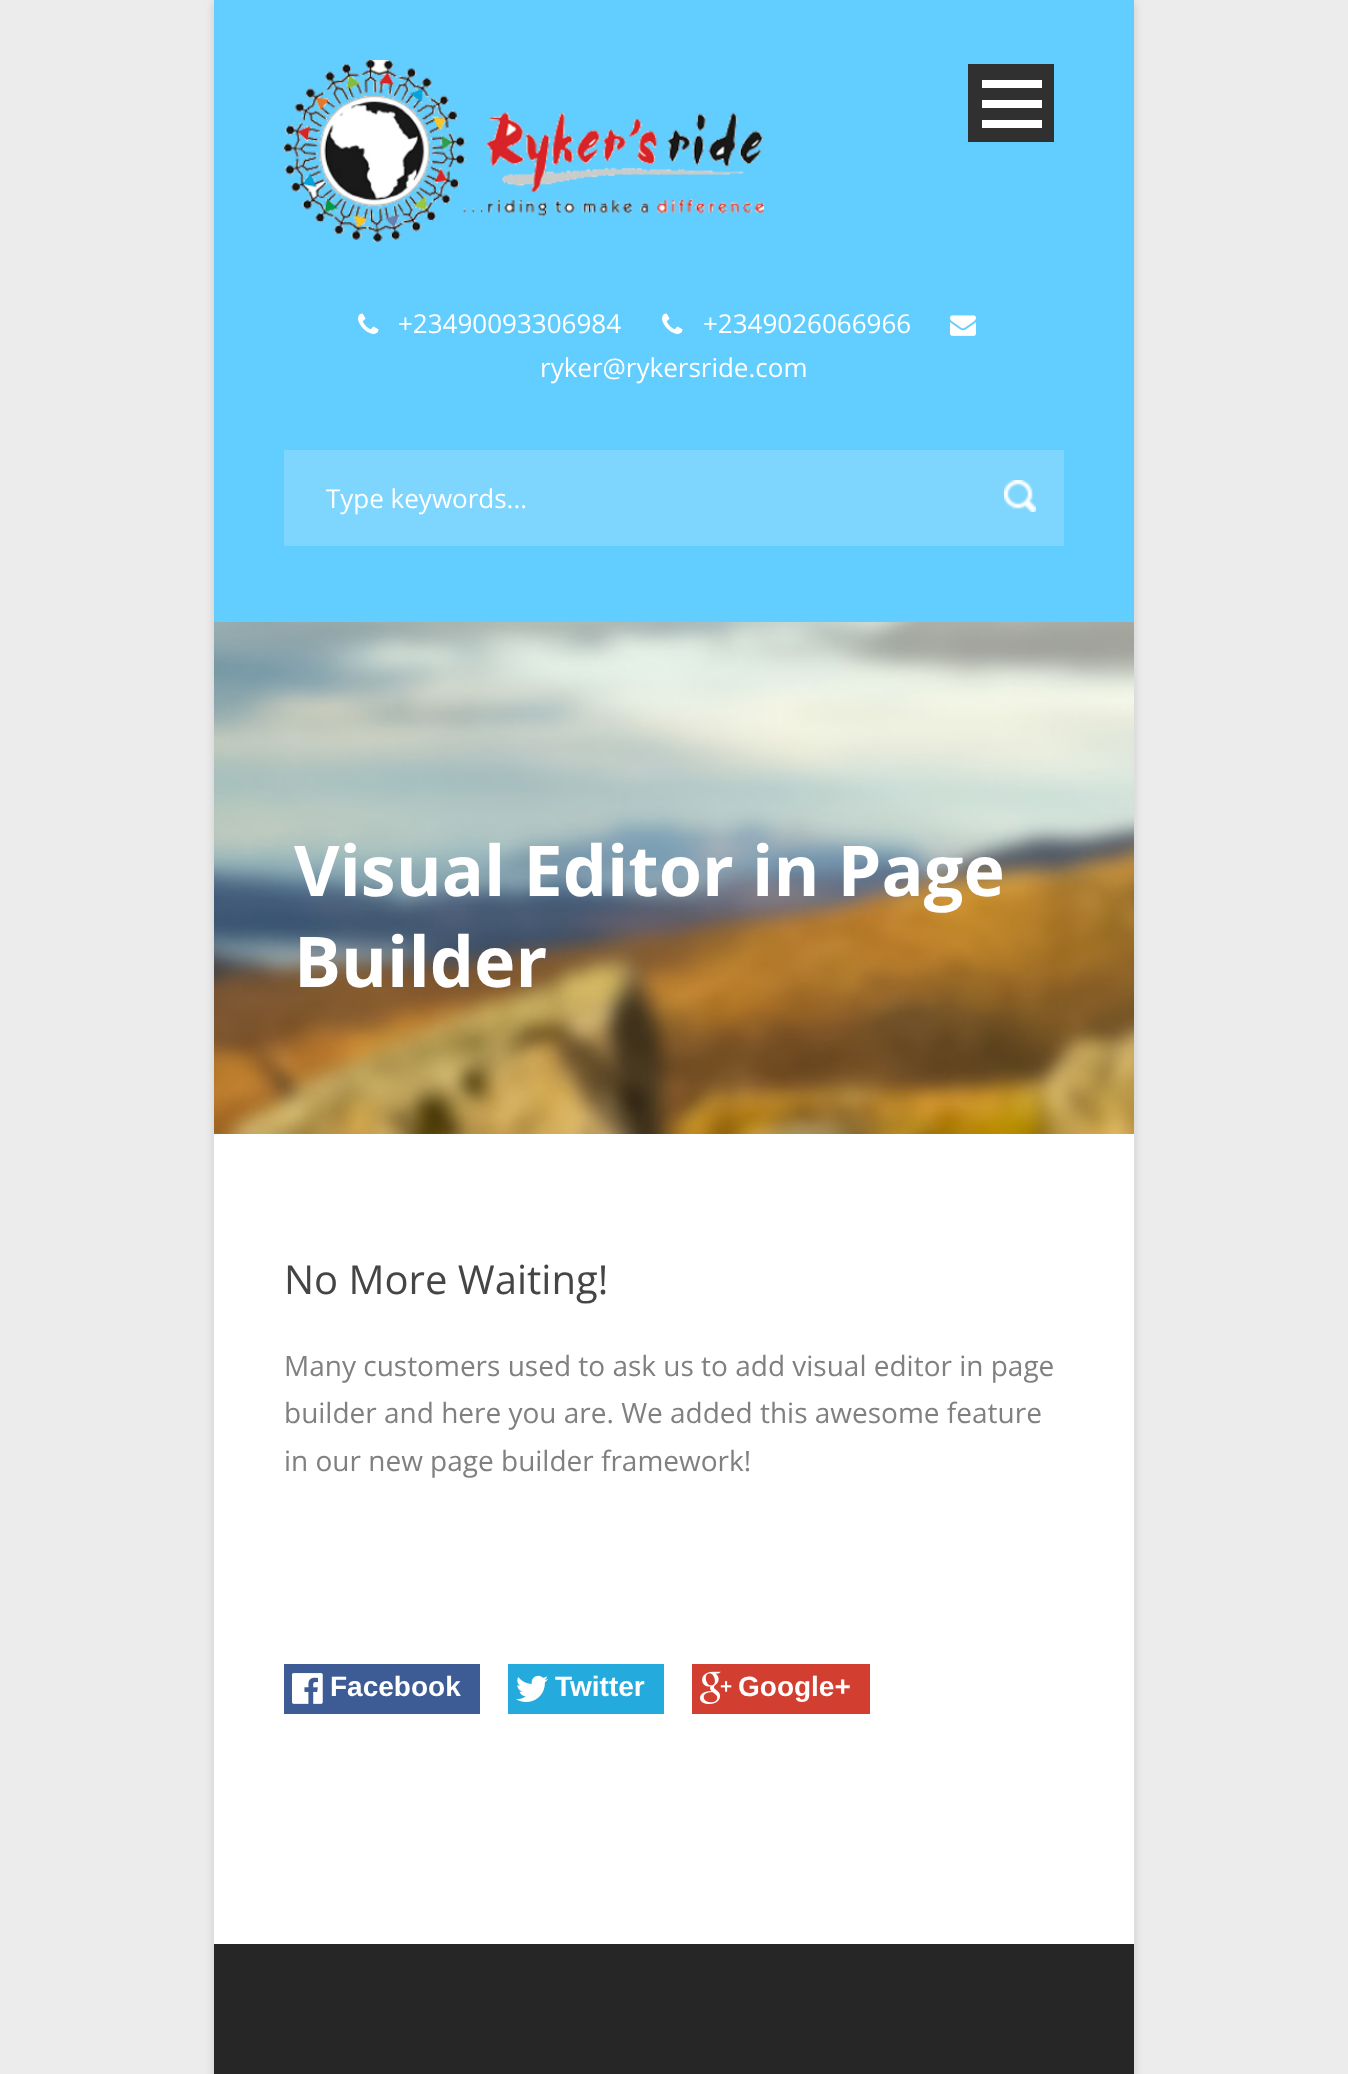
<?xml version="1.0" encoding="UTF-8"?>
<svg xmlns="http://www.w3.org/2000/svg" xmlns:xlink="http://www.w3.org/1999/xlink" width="1348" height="2074">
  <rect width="100%" height="100%" fill="#ececec" />
  <rect x="214" y="2" width="920" height="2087" fill="#000000" fill-opacity="0.15" filter="blur(5px)" />
  <rect x="214" y="1134" width="920" height="810" fill="#ffffff" />
  <rect x="214" width="920" height="622" fill="#62cdff" />
  <image x="284" y="60" width="480" height="182" xlink:href="image1.png" />
  <rect x="968" y="64" width="86" height="78" fill="#303030" />
  <rect x="982" y="120" width="60" height="8" fill="#ffffff" />
  <rect x="982" y="100" width="60" height="8" fill="#ffffff" />
  <rect x="982" y="80" width="60" height="8" fill="#ffffff" />
  <image x="358" y="313" width="21" height="21" xlink:href="image2.png" />
  <image x="662" y="313" width="21" height="21" xlink:href="image2.png" />
  <image x="950" y="315" width="26" height="21" xlink:href="image3.png" />
  <rect x="284" y="450" width="780" height="96" fill="#7ed6ff" />
  <image x="1004" y="480" width="32" height="32" xlink:href="image4.png" />
  <image x="214" y="622" width="920" height="512" xlink:href="image5.png" />
  <rect x="284" y="1664" width="196" height="50" fill="#3d5b95" />
  <image x="292" y="1673" width="31" height="31" xlink:href="image6.png" />
  <rect x="508" y="1664" width="156" height="50" fill="#24aadd" />
  <image x="516" y="1675" width="32" height="27" xlink:href="image7.png" />
  <rect x="692" y="1664" width="178" height="50" fill="#d23e30" />
  <image x="700" y="1671" width="32" height="33" xlink:href="image8.png" />
  <rect x="214" y="1944" width="920" height="130" fill="#262626" />
  <text x="398" y="333" style="font-family: Open Sans; font-size: 26px; fill: #ffffff">+23490093306984</text>
  <text x="703" y="333" style="font-family: Open Sans; font-size: 26px; fill: #ffffff">+2349026066966</text>
  <text x="540" y="377" style="font-family: Open Sans; font-size: 26px; fill: #ffffff">ryker@rykersride.com</text>
  <text x="326" y="508" style="font-family: Open Sans; font-size: 26px; fill: #ffffff">Type keywords...</text>
  <text x="294" y="896" style="font-family: Open Sans; font-size: 70px; font-weight: bold; fill: #ffffff">Visual Editor in Page</text>
  <text x="294" y="987" style="font-family: Open Sans; font-size: 70px; font-weight: bold; fill: #ffffff">Builder</text>
  <text x="284" y="1294" style="font-family: Open Sans; font-size: 40px; fill: #454545">No More Waiting!</text>
  <text x="284" y="1376" style="font-family: Open Sans; font-size: 28px; fill: #808080">Many customers used to ask us to add visual editor in page</text>
  <text x="284" y="1423" style="font-family: Open Sans; font-size: 28px; fill: #808080">builder and here you are. We added this awesome feature</text>
  <text x="284" y="1471" style="font-family: Open Sans; font-size: 28px; fill: #808080">in our new page builder framework!</text>
  <text x="330" y="1696" style="font-family: Liberation Sans; font-size: 28px; font-weight: bold; fill: #ffffff">Facebook</text>
  <text x="555" y="1696" style="font-family: Liberation Sans; font-size: 28px; font-weight: bold; fill: #ffffff">Twitter</text>
  <text x="738" y="1696" style="font-family: Liberation Sans; font-size: 28px; font-weight: bold; fill: #ffffff">Google+</text>
</svg>
